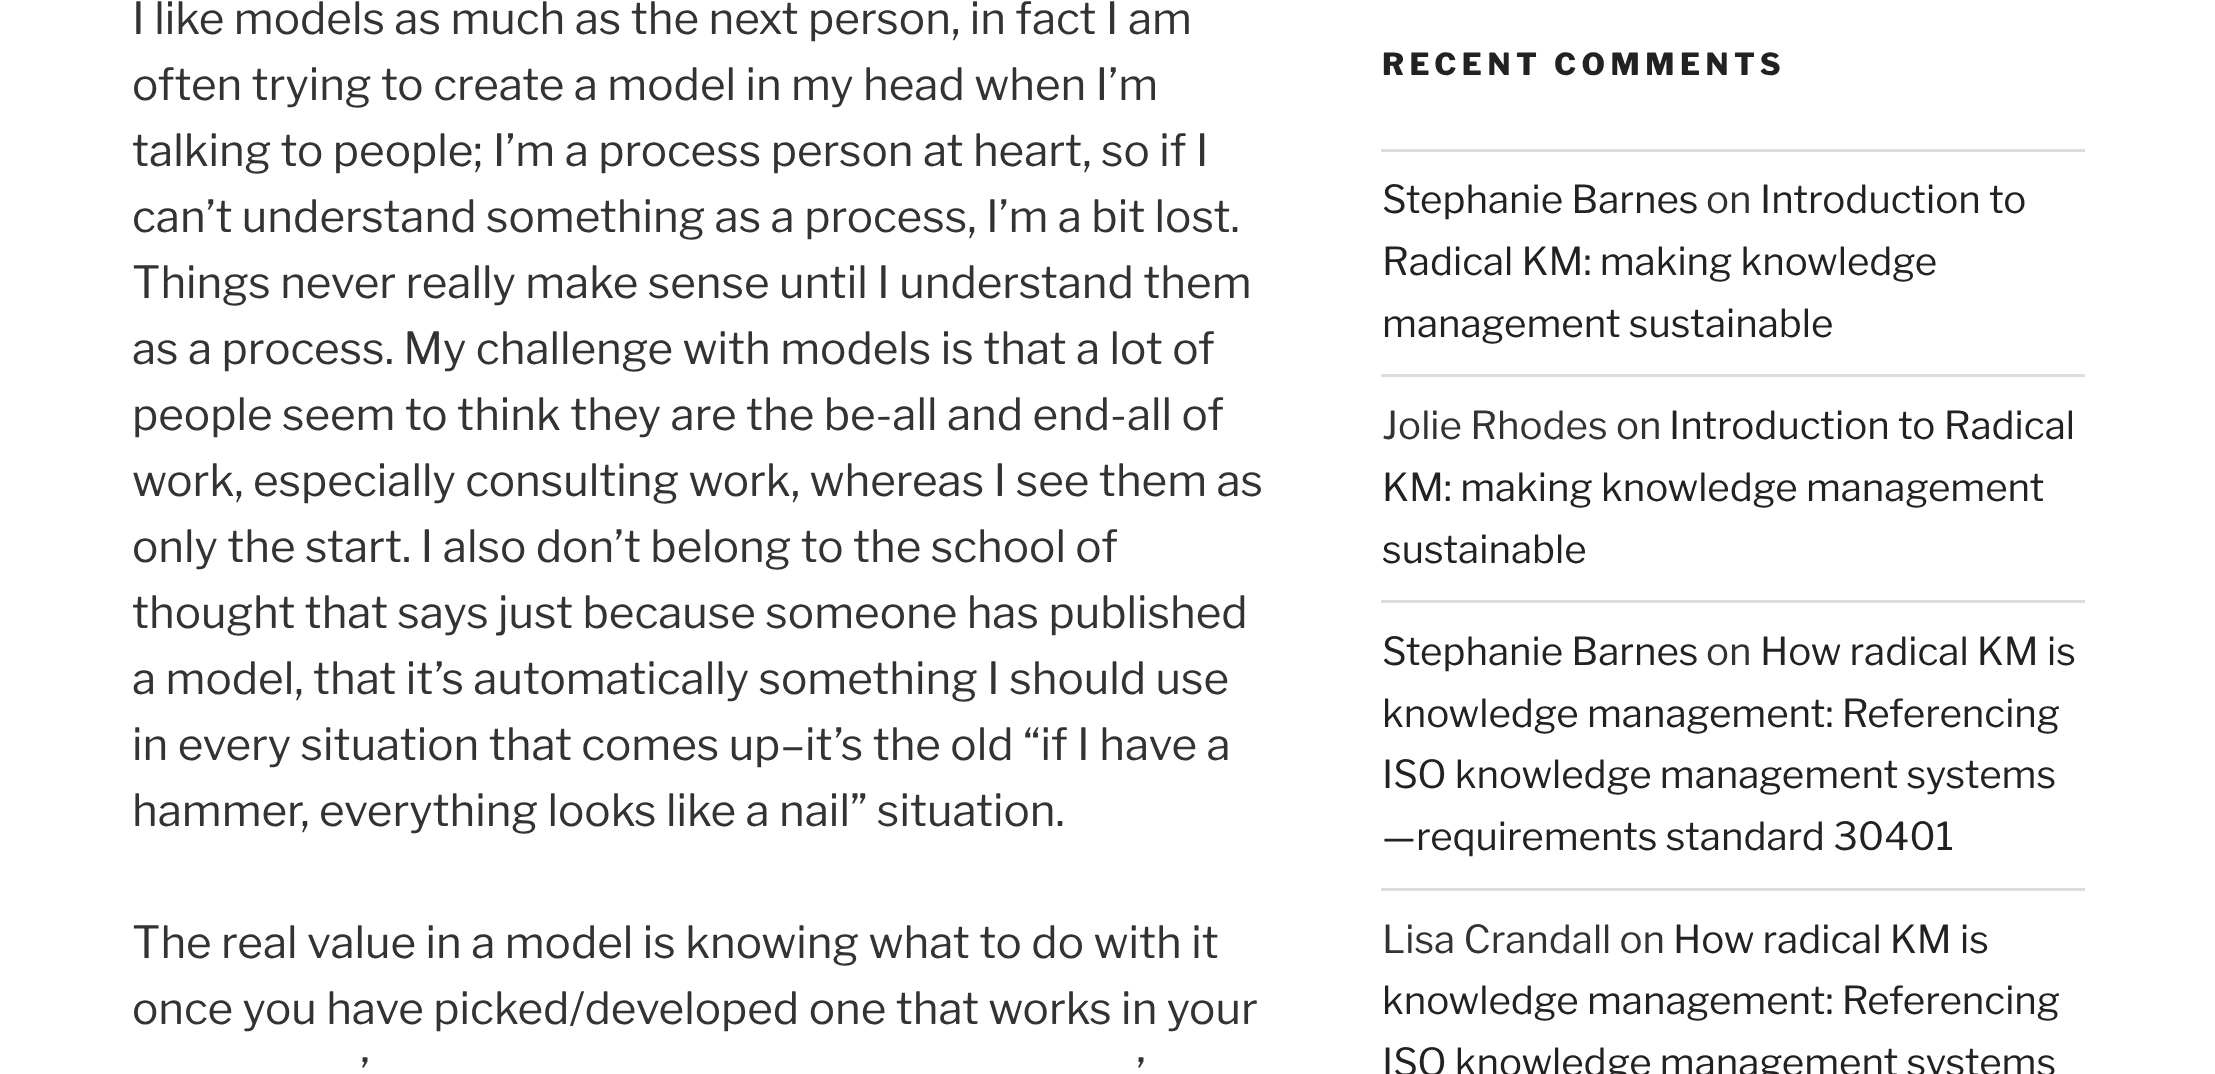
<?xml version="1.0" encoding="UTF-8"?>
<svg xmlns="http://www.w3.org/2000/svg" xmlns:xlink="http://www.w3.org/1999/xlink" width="2215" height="1074">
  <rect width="100%" height="100%" fill="#ffffff" />
  <rect x="1381" y="149" width="704" height="3" fill="#dddddd" />
  <rect x="1381" y="374" width="704" height="3" fill="#dddddd" />
  <rect x="1381" y="600" width="704" height="3" fill="#dddddd" />
  <rect x="1381" y="888" width="704" height="3" fill="#dddddd" />
  <text x="132" y="34" style="font-family: Libre Franklin; font-size: 44px; font-weight: 100; fill: #333333">I like models as much as the next person, in fact I am</text>
  <text x="132" y="100" style="font-family: Libre Franklin; font-size: 44px; font-weight: 100; fill: #333333">often trying to create a model in my head when I’m</text>
  <text x="132" y="166" style="font-family: Libre Franklin; font-size: 44px; font-weight: 100; fill: #333333">talking to people; I’m a process person at heart, so if I</text>
  <text x="132" y="232" style="font-family: Libre Franklin; font-size: 44px; font-weight: 100; fill: #333333">can’t understand something as a process, I’m a bit lost.</text>
  <text x="132" y="298" style="font-family: Libre Franklin; font-size: 44px; font-weight: 100; fill: #333333">Things never really make sense until I understand them</text>
  <text x="132" y="364" style="font-family: Libre Franklin; font-size: 44px; font-weight: 100; fill: #333333">as a process. My challenge with models is that a lot of</text>
  <text x="132" y="430" style="font-family: Libre Franklin; font-size: 44px; font-weight: 100; fill: #333333">people seem to think they are the be-all and end-all of</text>
  <text x="132" y="496" style="font-family: Libre Franklin; font-size: 44px; font-weight: 100; fill: #333333">work, especially consulting work, whereas I see them as</text>
  <text x="132" y="562" style="font-family: Libre Franklin; font-size: 44px; font-weight: 100; fill: #333333">only the start. I also don’t belong to the school of</text>
  <text x="132" y="628" style="font-family: Libre Franklin; font-size: 44px; font-weight: 100; fill: #333333">thought that says just because someone has published</text>
  <text x="132" y="694" style="font-family: Libre Franklin; font-size: 44px; font-weight: 100; fill: #333333">a model, that it’s automatically something I should use</text>
  <text x="132" y="760" style="font-family: Libre Franklin; font-size: 44px; font-weight: 100; fill: #333333">in every situation that comes up–it’s the old “if I have a</text>
  <text x="132" y="826" style="font-family: Libre Franklin; font-size: 44px; font-weight: 100; fill: #333333">hammer, everything looks like a nail” situation.</text>
  <text x="132" y="958" style="font-family: Libre Franklin; font-size: 44px; font-weight: 100; fill: #333333">The real value in a model is knowing what to do with it</text>
  <text x="132" y="1024" style="font-family: Libre Franklin; font-size: 44px; font-weight: 100; fill: #333333">once you have picked/developed one that works in your</text>
  <text x="360" y="1090" style="font-family: Libre Franklin; font-size: 44px; font-weight: 100; fill: #333333">’</text>
  <text x="1136" y="1090" style="font-family: Libre Franklin; font-size: 44px; font-weight: 100; fill: #333333">’</text>
  <text x="1382" y="75" style="font-family: 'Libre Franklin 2'; font-size: 30.25px; font-weight: 100; letter-spacing: 5.5px; fill: #222222">RECENT COMMENTS</text>
  <text x="1382" y="213" style="font-family: Libre Franklin; font-size: 38.5px; font-weight: 100; fill: #222222">Stephanie Barnes</text>
  <text x="1706" y="213" style="font-family: Libre Franklin; font-size: 38.5px; font-weight: 100; fill: #333333">on</text>
  <text x="1760" y="213" style="font-family: Libre Franklin; font-size: 38.5px; font-weight: 100; fill: #222222">Introduction to</text>
  <text x="1382" y="275" style="font-family: Libre Franklin; font-size: 38.5px; font-weight: 100; fill: #222222">Radical KM: making knowledge</text>
  <text x="1382" y="337" style="font-family: Libre Franklin; font-size: 38.5px; font-weight: 100; fill: #222222">management sustainable</text>
  <text x="1382" y="439" style="font-family: Libre Franklin; font-size: 38.5px; font-weight: 100; fill: #333333">Jolie Rhodes on</text>
  <text x="1669" y="439" style="font-family: Libre Franklin; font-size: 38.5px; font-weight: 100; fill: #222222">Introduction to Radical</text>
  <text x="1382" y="501" style="font-family: Libre Franklin; font-size: 38.5px; font-weight: 100; fill: #222222">KM: making knowledge management</text>
  <text x="1382" y="563" style="font-family: Libre Franklin; font-size: 38.5px; font-weight: 100; fill: #222222">sustainable</text>
  <text x="1382" y="665" style="font-family: Libre Franklin; font-size: 38.5px; font-weight: 100; fill: #222222">Stephanie Barnes</text>
  <text x="1706" y="665" style="font-family: Libre Franklin; font-size: 38.5px; font-weight: 100; fill: #333333">on</text>
  <text x="1760" y="665" style="font-family: Libre Franklin; font-size: 38.5px; font-weight: 100; fill: #222222">How radical KM is</text>
  <text x="1382" y="727" style="font-family: Libre Franklin; font-size: 38.5px; font-weight: 100; fill: #222222">knowledge management: Referencing</text>
  <text x="1382" y="788" style="font-family: Libre Franklin; font-size: 38.5px; font-weight: 100; fill: #222222">ISO knowledge management systems</text>
  <text x="1382" y="850" style="font-family: Libre Franklin; font-size: 38.5px; font-weight: 100; fill: #222222">—requirements standard 30401</text>
  <text x="1382" y="953" style="font-family: Libre Franklin; font-size: 38.5px; font-weight: 100; fill: #333333">Lisa Crandall on</text>
  <text x="1673" y="953" style="font-family: Libre Franklin; font-size: 38.5px; font-weight: 100; fill: #222222">How radical KM is</text>
  <text x="1382" y="1014" style="font-family: Libre Franklin; font-size: 38.5px; font-weight: 100; fill: #222222">knowledge management: Referencing</text>
  <text x="1382" y="1076" style="font-family: Libre Franklin; font-size: 38.5px; font-weight: 100; fill: #222222">ISO knowledge management systems</text>
</svg>
